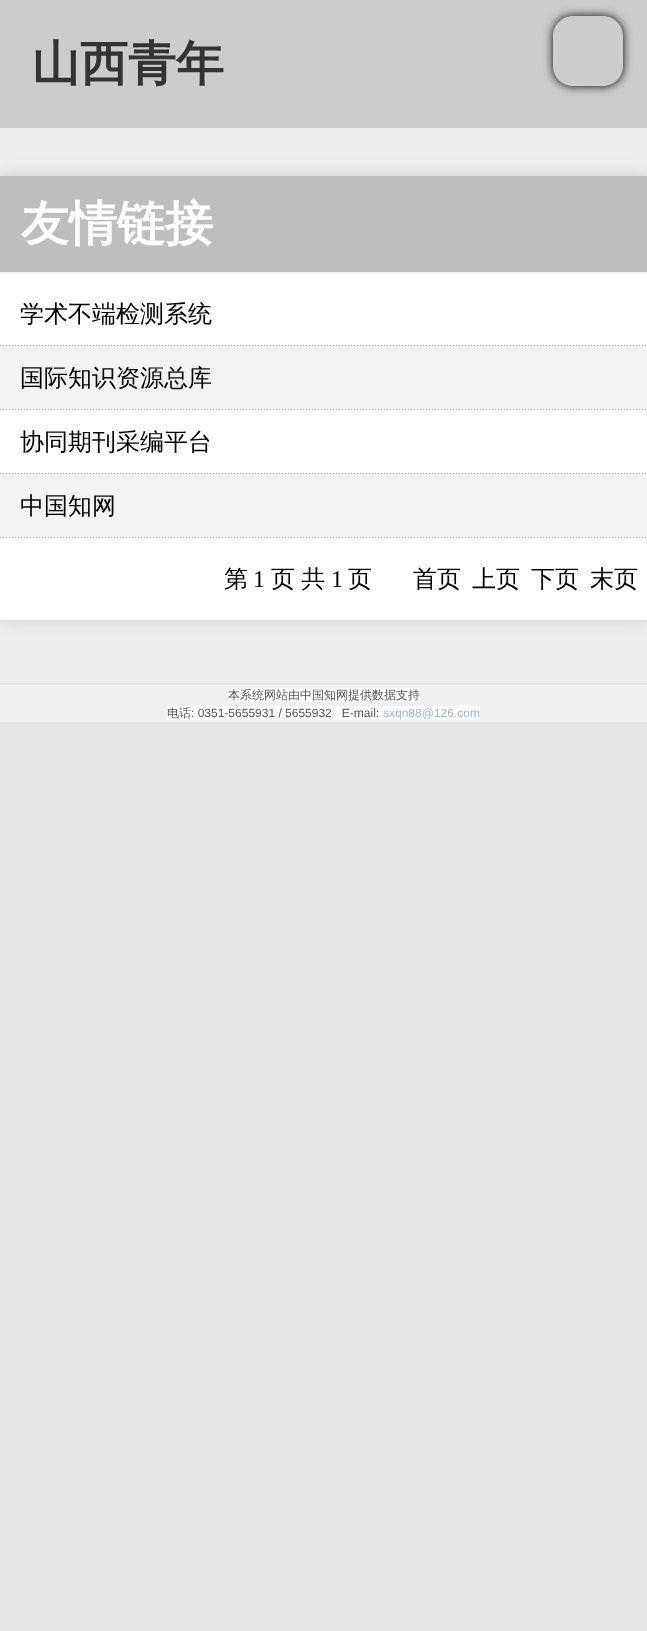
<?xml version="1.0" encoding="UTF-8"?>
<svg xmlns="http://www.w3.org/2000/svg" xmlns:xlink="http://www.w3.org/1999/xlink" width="647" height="1631">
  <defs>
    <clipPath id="clip1"><path d="M 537 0 h 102 v 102 h -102 z m 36 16 h 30 c 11 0 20 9 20 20 v 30 c 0 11 -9 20 -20 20 h -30 c -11 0 -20 -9 -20 -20 v -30 c 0 -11 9 -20 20 -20 z" clip-rule="evenodd" /></clipPath>
  </defs>
  <rect width="100%" height="100%" fill="#e6e6e6" />
  <rect width="647" height="128" fill="#cccccc" />
  <g clip-path="url(#clip1)">
    <rect x="553" y="16" width="70" height="70" rx="20" fill="#000000" filter="blur(5px)" />
  </g>
  <rect y="128" width="647" height="555" fill="#eeeeee" />
  <rect y="176" width="647" height="444" fill="#cccccc" filter="blur(8px)" />
  <rect y="176" width="647" height="96" fill="#bebebe" />
  <rect y="272" width="647" height="2" fill="#f5f5f5" />
  <rect y="274" width="647" height="346" fill="#ffffff" />
  <image x="0" y="345" width="646" height="1" xlink:href="image1.png" />
  <rect y="346" width="647" height="64" fill="#f3f3f3" />
  <image x="0" y="409" width="646" height="1" xlink:href="image2.png" />
  <image x="0" y="473" width="646" height="1" xlink:href="image1.png" />
  <rect y="474" width="647" height="64" fill="#f3f3f3" />
  <image x="0" y="537" width="646" height="1" xlink:href="image2.png" />
  <rect y="686" width="647" height="36" fill="#f0f0f0" />
  <rect y="685" width="647" height="1" fill="#ffffff" />
  <rect x="228" y="688" width="192" height="14" fill="#ffffff" />
  <rect x="167" y="706" width="313" height="14" fill="#ffffff" />
  <text x="32" y="80" style="font-family: WenQuanYi Zen Hei; font-size: 48px; font-weight: bold; fill: #333333">山西青年</text>
  <text x="21" y="240" style="font-family: WenQuanYi Zen Hei; font-size: 48px; font-weight: bold; fill: #ffffff">友情链接</text>
  <text x="20" y="322" style="font-family: WenQuanYi Zen Hei; font-size: 24px; font-weight: 500; fill: #000000">学术不端检测系统</text>
  <text x="20" y="386" style="font-family: WenQuanYi Zen Hei; font-size: 24px; font-weight: 500; fill: #000000">国际知识资源总库</text>
  <text x="20" y="450" style="font-family: WenQuanYi Zen Hei; font-size: 24px; font-weight: 500; fill: #000000">协同期刊采编平台</text>
  <text x="20" y="514" style="font-family: WenQuanYi Zen Hei; font-size: 24px; font-weight: 500; fill: #000000">中国知网</text>
  <text x="224" y="587" style="font-family: WenQuanYi Zen Hei; font-size: 24px; font-weight: 500; fill: #000000">第</text>
  <text x="253" y="587" style="font-family: Liberation Serif; font-size: 24px; fill: #000000">1</text>
  <text x="271" y="587" word-spacing="-1" style="font-family: WenQuanYi Zen Hei; font-size: 24px; font-weight: 500; fill: #000000">页 共</text>
  <text x="331" y="587" style="font-family: Liberation Serif; font-size: 24px; fill: #000000">1</text>
  <text x="348" y="587" style="font-family: WenQuanYi Zen Hei; font-size: 24px; font-weight: 500; fill: #000000">页</text>
  <text x="413" y="587" style="font-family: WenQuanYi Zen Hei; font-size: 24px; font-weight: 500; fill: #000000">首页</text>
  <text x="472" y="587" style="font-family: WenQuanYi Zen Hei; font-size: 24px; font-weight: 500; fill: #000000">上页</text>
  <text x="531" y="587" style="font-family: WenQuanYi Zen Hei; font-size: 24px; font-weight: 500; fill: #000000">下页</text>
  <text x="590" y="587" style="font-family: WenQuanYi Zen Hei; font-size: 24px; font-weight: 500; fill: #000000">末页</text>
  <text x="228" y="699" style="font-family: WenQuanYi Zen Hei; font-size: 12px; font-weight: 500; fill: #565556">本系统网站由中国知网提供数据支持</text>
  <text x="167" y="717" style="font-family: WenQuanYi Zen Hei; font-size: 12px; font-weight: 500; fill: #565556">电话</text>
  <text x="191" y="717" style="font-family: Liberation Sans; font-size: 12px; fill: #565556" xml:space="preserve">: 0351-5655931 / 5655932   E-mail:</text>
  <text x="383" y="717" style="font-family: Liberation Sans; font-size: 12px; fill: #a0b3d6">sxqn88@126.com</text>
</svg>
